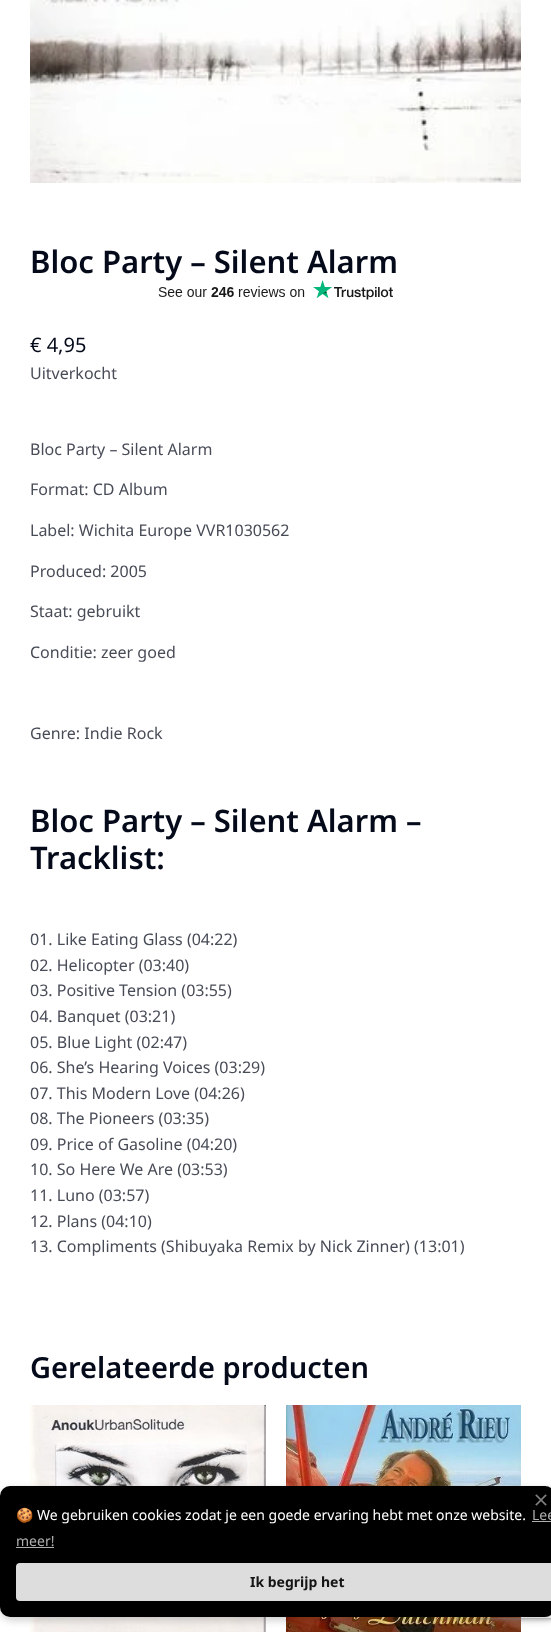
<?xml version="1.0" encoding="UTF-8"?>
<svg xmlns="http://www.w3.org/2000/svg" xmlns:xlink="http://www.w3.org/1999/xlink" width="551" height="1632">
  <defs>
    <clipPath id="clip1"><path d="M 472 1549 h 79 v 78 h -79 z m 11 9 h 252 c 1 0 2 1 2 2 v 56 c 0 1 -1 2 -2 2 h -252 c -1 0 -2 -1 -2 -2 v -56 c 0 -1 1 -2 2 -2 z" clip-rule="evenodd" /></clipPath>
  </defs>
  <rect width="100%" height="100%" fill="#ffffff" />
  <image x="30" y="0" width="491" height="183" xlink:href="image1.png" />
  <image x="30" y="1405" width="236" height="227" xlink:href="image3.png" />
  <image x="286" y="1405" width="235" height="227" xlink:href="image4.png" />
  <rect x="1" y="1489" width="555" height="131" rx="10" fill="#000000" fill-opacity="0.2" filter="blur(4px)" />
  <g clip-path="url(#clip1)">
    <rect x="481" y="1558" width="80" height="60" rx="2" fill="#808080" filter="blur(2.5px)" />
  </g>
  <rect y="1486" width="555" height="131" rx="10" fill="#000000" />
  <image x="535" y="1494" width="12" height="12" xlink:href="image5.png" />
  <rect x="532" y="1521" width="19" height="1" fill="#aeaeae" />
  <rect x="16" y="1547" width="38" height="1" fill="#aeaeae" />
  <rect x="16" y="1563" width="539" height="38" rx="4" fill="#dddddd" />
  <text x="30" y="273" style="font-family: Noto Sans; font-size: 31px; font-weight: 600; fill: #040a19">Bloc Party – Silent Alarm</text>
  <image x="158" y="280" width="235" height="20" xlink:href="image2.png" />
  <text x="30" y="352" style="font-family: Noto Sans; font-size: 20px; fill: #040a19">€ 4,95</text>
  <text x="30" y="379" style="font-family: Noto Sans; font-size: 16px; fill: #484c57">Uitverkocht</text>
  <text x="30" y="455" style="font-family: Noto Sans; font-size: 16px; fill: #484c57">Bloc Party – Silent Alarm</text>
  <text x="30" y="495" style="font-family: Noto Sans; font-size: 16px; fill: #484c57">Format: CD Album</text>
  <text x="30" y="536" style="font-family: Noto Sans; font-size: 16px; fill: #484c57">Label: Wichita Europe VVR1030562</text>
  <text x="30" y="577" style="font-family: Noto Sans; font-size: 16px; fill: #484c57">Produced: 2005</text>
  <text x="30" y="617" style="font-family: Noto Sans; font-size: 16px; fill: #484c57">Staat: gebruikt</text>
  <text x="30" y="658" style="font-family: Noto Sans; font-size: 16px; fill: #484c57">Conditie: zeer goed</text>
  <text x="30" y="739" style="font-family: Noto Sans; font-size: 16px; fill: #484c57">Genre: Indie Rock</text>
  <text x="30" y="832" style="font-family: Noto Sans; font-size: 31px; font-weight: 600; fill: #040a19">Bloc Party – Silent Alarm –</text>
  <text x="30" y="869" style="font-family: Noto Sans; font-size: 31px; font-weight: 600; fill: #040a19">Tracklist:</text>
  <text x="30" y="945" style="font-family: Noto Sans; font-size: 16px; fill: #484c57">01. Like Eating Glass (04:22)</text>
  <text x="30" y="971" style="font-family: Noto Sans; font-size: 16px; fill: #484c57">02. Helicopter (03:40)</text>
  <text x="30" y="996" style="font-family: Noto Sans; font-size: 16px; fill: #484c57">03. Positive Tension (03:55)</text>
  <text x="30" y="1022" style="font-family: Noto Sans; font-size: 16px; fill: #484c57">04. Banquet (03:21)</text>
  <text x="30" y="1048" style="font-family: Noto Sans; font-size: 16px; fill: #484c57">05. Blue Light (02:47)</text>
  <text x="30" y="1073" style="font-family: Noto Sans; font-size: 16px; fill: #484c57">06. She’s Hearing Voices (03:29)</text>
  <text x="30" y="1099" style="font-family: Noto Sans; font-size: 16px; fill: #484c57">07. This Modern Love (04:26)</text>
  <text x="30" y="1124" style="font-family: Noto Sans; font-size: 16px; fill: #484c57">08. The Pioneers (03:35)</text>
  <text x="30" y="1150" style="font-family: Noto Sans; font-size: 16px; fill: #484c57">09. Price of Gasoline (04:20)</text>
  <text x="30" y="1175" style="font-family: Noto Sans; font-size: 16px; fill: #484c57">10. So Here We Are (03:53)</text>
  <text x="30" y="1201" style="font-family: Noto Sans; font-size: 16px; fill: #484c57">11. Luno (03:57)</text>
  <text x="30" y="1227" style="font-family: Noto Sans; font-size: 16px; fill: #484c57">12. Plans (04:10)</text>
  <text x="30" y="1252" style="font-family: Noto Sans; font-size: 16px; fill: #484c57">13. Compliments (Shibuyaka Remix by Nick Zinner) (13:01)</text>
  <text x="30" y="1378" style="font-family: Noto Sans; font-size: 29px; font-weight: 600; fill: #040a19">Gerelateerde producten</text>
  <text x="16" y="1520" style="font-family: Noto Color Emoji; font-size: 14px; fill: #ffffff">🍪</text>
  <text x="37" y="1520" style="font-family: Noto Sans; font-size: 14px; fill: #ffffff">We gebruiken cookies zodat je een goede ervaring hebt met onze website.</text>
  <text x="532" y="1520" style="font-family: Noto Sans; font-size: 14px; fill: #aeaeae">Lee</text>
  <text x="16" y="1546" style="font-family: Noto Sans; font-size: 14px; fill: #aeaeae">meer!</text>
  <text x="250" y="1587" style="font-family: Noto Sans; font-size: 14px; font-weight: bold; fill: #151515">Ik begrijp het</text>
</svg>
